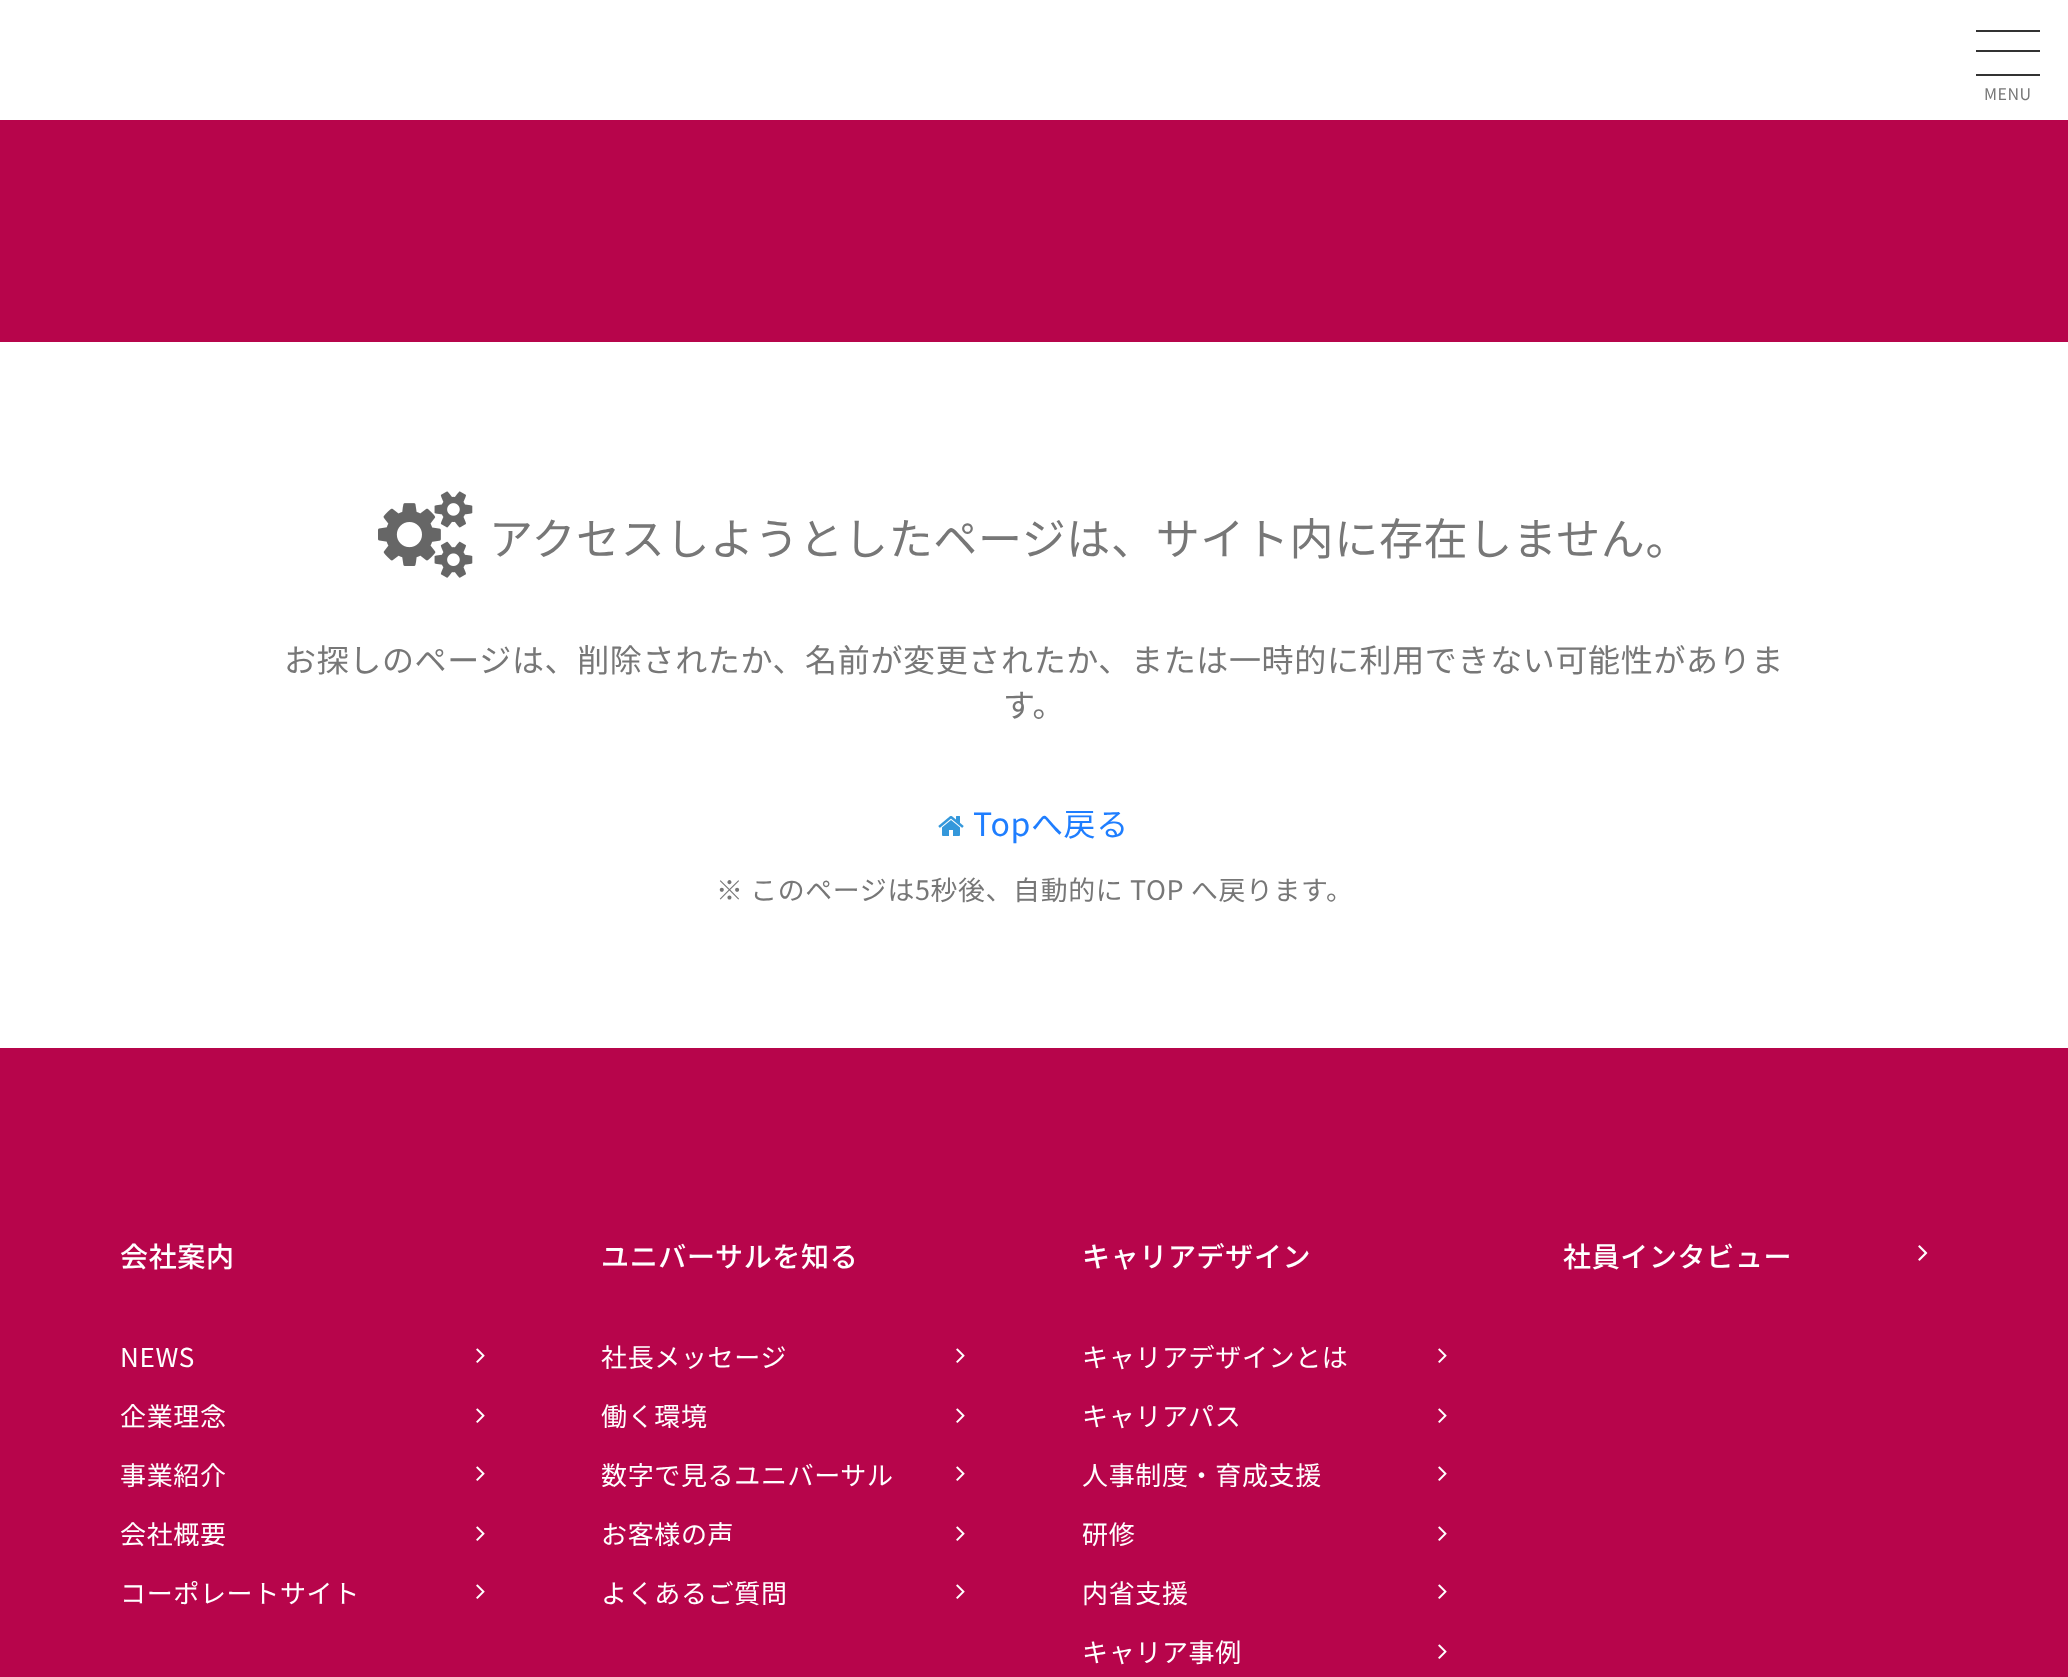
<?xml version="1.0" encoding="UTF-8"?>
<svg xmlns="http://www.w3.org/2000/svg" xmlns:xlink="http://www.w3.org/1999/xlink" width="2068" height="1677">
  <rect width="100%" height="100%" fill="#ffffff" />
  <rect x="1976" y="30" width="64" height="2" fill="#333333" />
  <rect x="1976" y="50" width="64" height="2" fill="#333333" />
  <rect x="1976" y="74" width="64" height="2" fill="#333333" />
  <rect y="120" width="2068" height="222" fill="#b7054b" />
  <image x="378" y="491" width="95" height="87" xlink:href="image1.png" />
  <image x="938" y="816" width="26" height="20" xlink:href="image2.png" />
  <rect y="1048" width="2068" height="629" fill="#b7054b" />
  <image x="476" y="1348" width="9" height="15" xlink:href="image3.png" />
  <image x="476" y="1408" width="9" height="15" xlink:href="image3.png" />
  <image x="476" y="1466" width="9" height="15" xlink:href="image3.png" />
  <image x="476" y="1526" width="9" height="15" xlink:href="image3.png" />
  <image x="476" y="1584" width="9" height="15" xlink:href="image3.png" />
  <image x="956" y="1348" width="9" height="15" xlink:href="image3.png" />
  <image x="956" y="1408" width="9" height="15" xlink:href="image3.png" />
  <image x="956" y="1466" width="9" height="15" xlink:href="image3.png" />
  <image x="956" y="1526" width="9" height="15" xlink:href="image3.png" />
  <image x="956" y="1584" width="9" height="15" xlink:href="image3.png" />
  <image x="1438" y="1348" width="9" height="15" xlink:href="image3.png" />
  <image x="1438" y="1408" width="9" height="15" xlink:href="image3.png" />
  <image x="1438" y="1466" width="9" height="15" xlink:href="image3.png" />
  <image x="1438" y="1526" width="9" height="15" xlink:href="image3.png" />
  <image x="1438" y="1584" width="9" height="15" xlink:href="image3.png" />
  <image x="1438" y="1644" width="9" height="15" xlink:href="image3.png" />
  <image x="1918" y="1245" width="10" height="16" xlink:href="image4.png" />
  <text x="1984" y="100" style="font-family: Noto Sans JP; font-size: 16px; letter-spacing: 0.5px; fill: #777777">MENU</text>
  <text x="489" y="555" style="font-family: Noto Sans JP; font-size: 44px; letter-spacing: 0.65px; fill: #777777">アクセスしようとしたページは、サイト内に存在しません。</text>
  <text x="284" y="672" style="font-family: Noto Sans JP; font-size: 32px; letter-spacing: 0.65px; fill: #777777">お探しのページは、削除されたか、名前が変更されたか、または一時的に利用できない可能性がありま</text>
  <text x="1003" y="717" style="font-family: Noto Sans JP; font-size: 32px; letter-spacing: 0.65px; fill: #777777">す。</text>
  <text x="973" y="836" style="font-family: Noto Sans JP; font-size: 32px; letter-spacing: 0.65px; fill: #1f7eff">Topへ戻る</text>
  <text x="716" y="900" style="font-family: Noto Sans JP; font-size: 26.9px; letter-spacing: 0.65px; fill: #777777">※ このページは5秒後、自動的に TOP へ戻ります。</text>
  <text x="120" y="1267" style="font-family: Noto Sans JP; font-size: 28px; font-weight: 500; letter-spacing: 0.65px; fill: #ffffff">会社案内</text>
  <text x="120" y="1367" style="font-family: Noto Sans JP; font-size: 26px; letter-spacing: 0.65px; fill: #ffffff">NEWS</text>
  <text x="120" y="1426" style="font-family: Noto Sans JP; font-size: 26px; letter-spacing: 0.65px; fill: #ffffff">企業理念</text>
  <text x="120" y="1485" style="font-family: Noto Sans JP; font-size: 26px; letter-spacing: 0.65px; fill: #ffffff">事業紹介</text>
  <text x="120" y="1544" style="font-family: Noto Sans JP; font-size: 26px; letter-spacing: 0.65px; fill: #ffffff">会社概要</text>
  <text x="120" y="1603" style="font-family: Noto Sans JP; font-size: 26px; letter-spacing: 0.65px; fill: #ffffff">コーポレートサイト</text>
  <text x="601" y="1267" style="font-family: Noto Sans JP; font-size: 28px; font-weight: 500; letter-spacing: 0.65px; fill: #ffffff">ユニバーサルを知る</text>
  <text x="601" y="1367" style="font-family: Noto Sans JP; font-size: 26px; letter-spacing: 0.65px; fill: #ffffff">社長メッセージ</text>
  <text x="601" y="1426" style="font-family: Noto Sans JP; font-size: 26px; letter-spacing: 0.65px; fill: #ffffff">働く環境</text>
  <text x="601" y="1485" style="font-family: Noto Sans JP; font-size: 26px; letter-spacing: 0.65px; fill: #ffffff">数字で見るユニバーサル</text>
  <text x="601" y="1544" style="font-family: Noto Sans JP; font-size: 26px; letter-spacing: 0.65px; fill: #ffffff">お客様の声</text>
  <text x="601" y="1603" style="font-family: Noto Sans JP; font-size: 26px; letter-spacing: 0.65px; fill: #ffffff">よくあるご質問</text>
  <text x="1082" y="1267" style="font-family: Noto Sans JP; font-size: 28px; font-weight: 500; letter-spacing: 0.65px; fill: #ffffff">キャリアデザイン</text>
  <text x="1082" y="1367" style="font-family: Noto Sans JP; font-size: 26px; letter-spacing: 0.65px; fill: #ffffff">キャリアデザインとは</text>
  <text x="1082" y="1426" style="font-family: Noto Sans JP; font-size: 26px; letter-spacing: 0.65px; fill: #ffffff">キャリアパス</text>
  <text x="1082" y="1485" style="font-family: Noto Sans JP; font-size: 26px; letter-spacing: 0.65px; fill: #ffffff">人事制度・育成支援</text>
  <text x="1082" y="1544" style="font-family: Noto Sans JP; font-size: 26px; letter-spacing: 0.65px; fill: #ffffff">研修</text>
  <text x="1082" y="1603" style="font-family: Noto Sans JP; font-size: 26px; letter-spacing: 0.65px; fill: #ffffff">内省支援</text>
  <text x="1082" y="1662" style="font-family: Noto Sans JP; font-size: 26px; letter-spacing: 0.65px; fill: #ffffff">キャリア事例</text>
  <text x="1563" y="1267" style="font-family: Noto Sans JP; font-size: 28px; font-weight: 500; letter-spacing: 0.65px; fill: #ffffff">社員インタビュー</text>
</svg>
